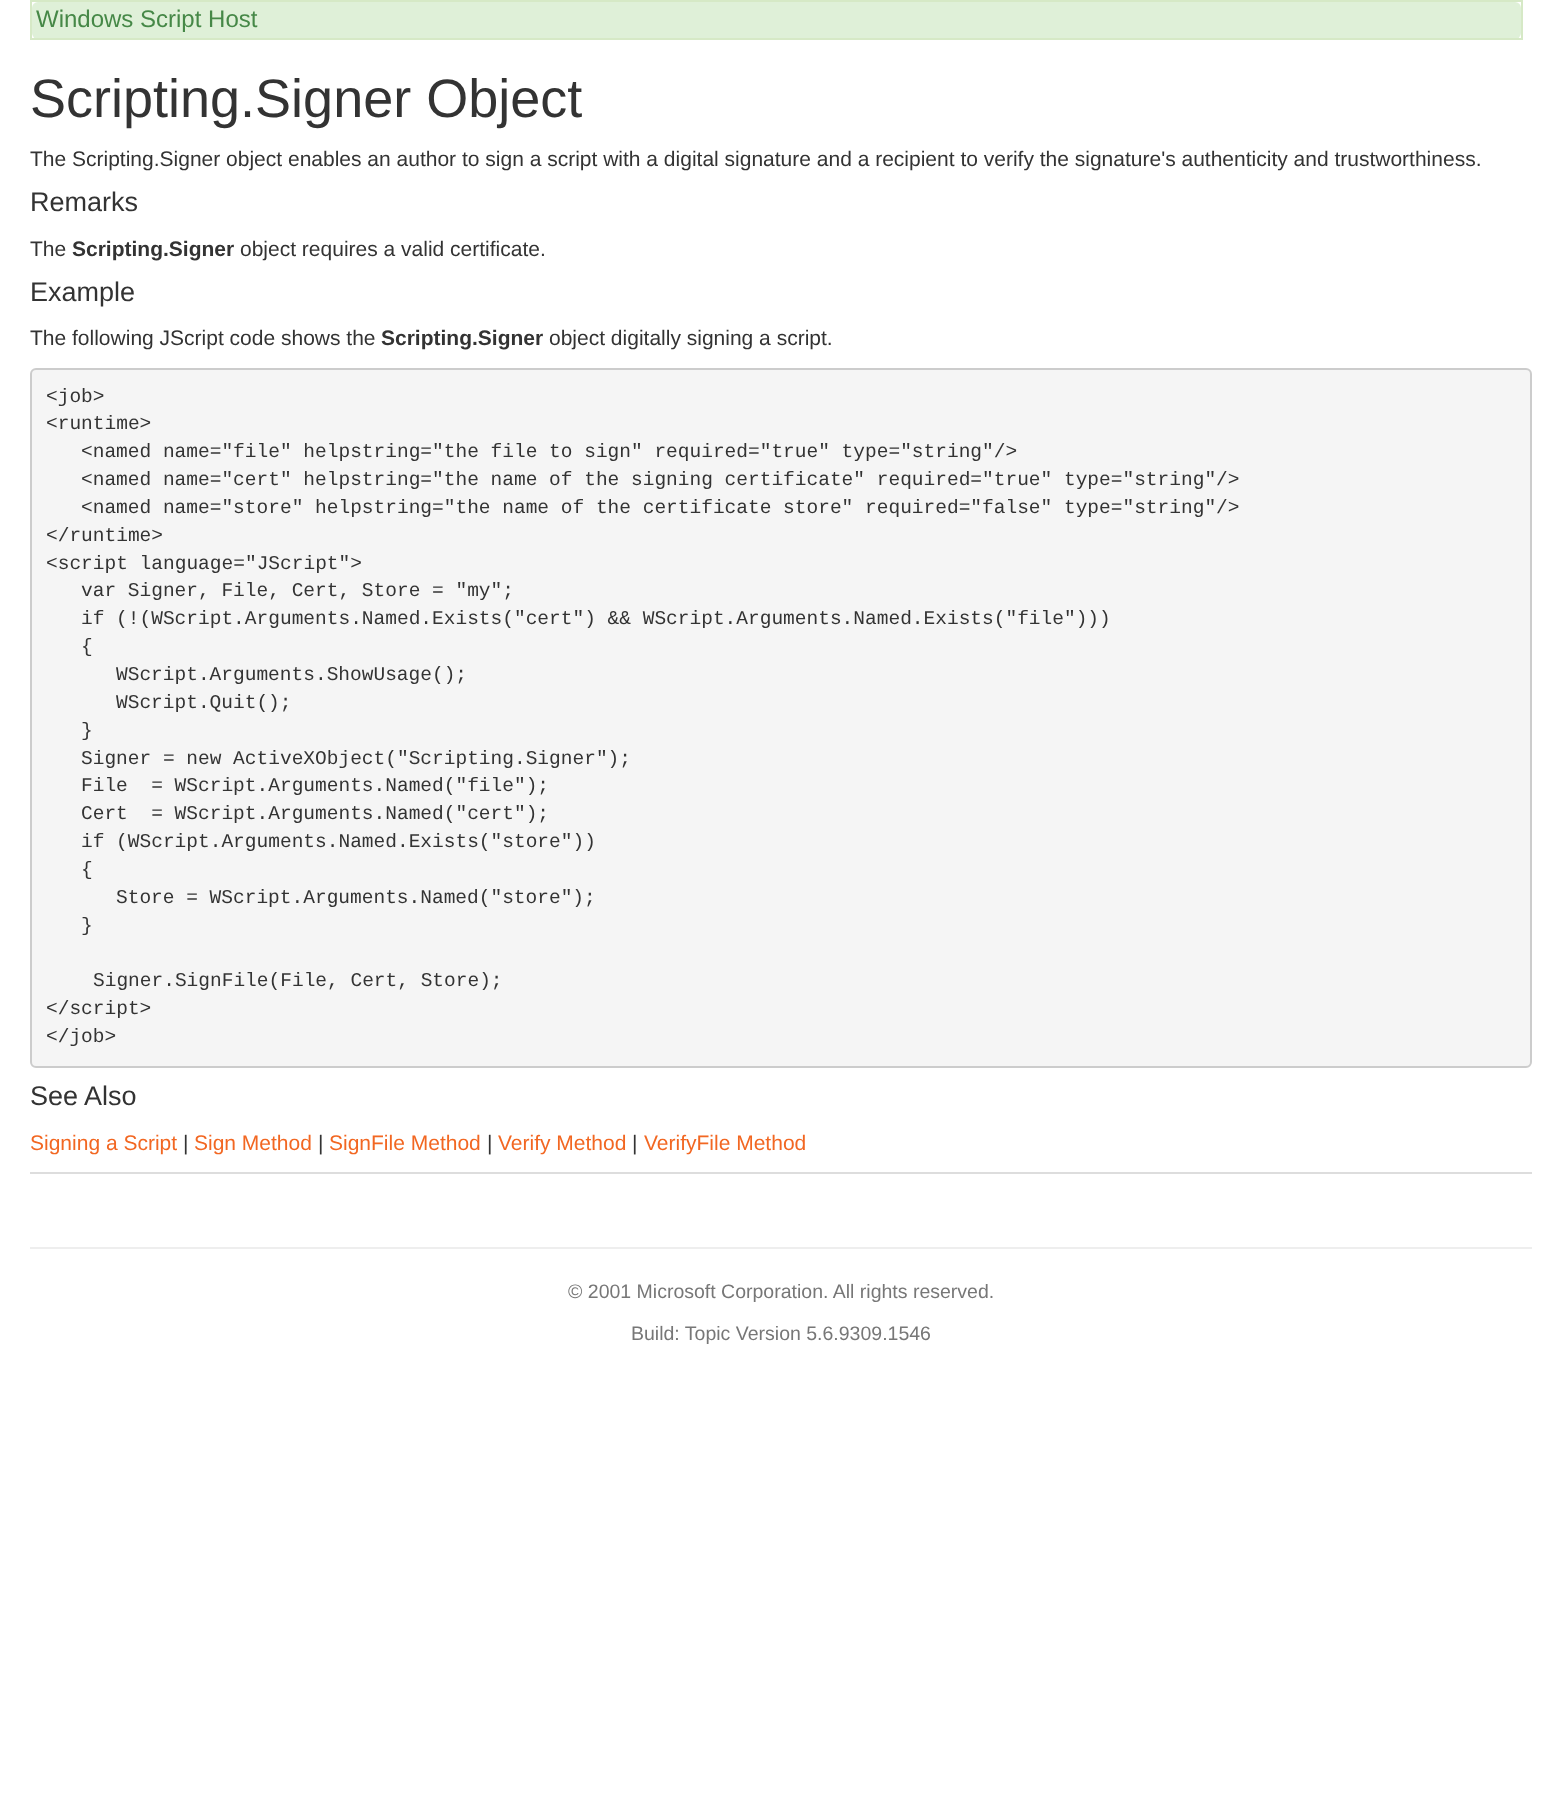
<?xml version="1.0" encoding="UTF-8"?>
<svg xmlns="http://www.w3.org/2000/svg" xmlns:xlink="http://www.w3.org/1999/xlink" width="1561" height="1814">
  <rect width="100%" height="100%" fill="#ffffff" />
  <rect x="32" y="2" width="1489" height="37" rx="6" fill="#dff0d8" />
  <rect x="30" width="1493" height="2" fill="#d6e9c6" />
  <rect x="1521" width="2" height="39" fill="#d6e9c6" />
  <rect x="30" y="38" width="1493" height="2" fill="#d6e9c6" />
  <rect x="30" width="2" height="39" fill="#d6e9c6" />
  <rect x="31" y="369" width="1500" height="698" rx="5" fill="#f5f5f5" stroke="#cccccc" stroke-width="2" />
  <rect x="30" y="1172" width="1502" height="2" fill="#dddddd" />
  <rect x="30" y="1247" width="1502" height="2" fill="#eeeeee" />
  <text x="36" y="27" style="font-family: Liberation Sans; font-size: 24px; fill: #468847">Windows Script Host</text>
  <text x="30" y="117" style="font-family: Liberation Sans; font-size: 54px; fill: #333333">Scripting.Signer Object</text>
  <text x="30" y="166" style="font-family: Liberation Sans; font-size: 21px; fill: #333333">The Scripting.Signer object enables an author to sign a script with a digital signature and a recipient to verify the signature's authenticity and trustworthiness.</text>
  <text x="30" y="211" style="font-family: Liberation Sans; font-size: 27px; fill: #333333">Remarks</text>
  <text x="30" y="256" style="font-family: Liberation Sans; font-size: 21px; fill: #333333">The</text>
  <text x="72" y="256" style="font-family: Liberation Sans; font-size: 21px; font-weight: bold; fill: #333333">Scripting.Signer</text>
  <text x="240" y="256" style="font-family: Liberation Sans; font-size: 21px; fill: #333333">object requires a valid certificate.</text>
  <text x="30" y="301" style="font-family: Liberation Sans; font-size: 27px; fill: #333333">Example</text>
  <text x="30" y="345" style="font-family: Liberation Sans; font-size: 21px; fill: #333333">The following JScript code shows the</text>
  <text x="381" y="345" style="font-family: Liberation Sans; font-size: 21px; font-weight: bold; fill: #333333">Scripting.Signer</text>
  <text x="549" y="345" style="font-family: Liberation Sans; font-size: 21px; fill: #333333">object digitally signing a script.</text>
  <text x="46" y="402" style="font-family: Liberation Mono; font-size: 19.5px; fill: #333333">&lt;job&gt;</text>
  <text x="46" y="429" style="font-family: Liberation Mono; font-size: 19.5px; fill: #333333">&lt;runtime&gt;</text>
  <text x="81" y="457" style="font-family: Liberation Mono; font-size: 19.5px; fill: #333333">&lt;named name="file" helpstring="the file to sign" required="true" type="string"/&gt;</text>
  <text x="81" y="485" style="font-family: Liberation Mono; font-size: 19.5px; fill: #333333">&lt;named name="cert" helpstring="the name of the signing certificate" required="true" type="string"/&gt;</text>
  <text x="81" y="513" style="font-family: Liberation Mono; font-size: 19.5px; fill: #333333">&lt;named name="store" helpstring="the name of the certificate store" required="false" type="string"/&gt;</text>
  <text x="46" y="541" style="font-family: Liberation Mono; font-size: 19.5px; fill: #333333">&lt;/runtime&gt;</text>
  <text x="46" y="569" style="font-family: Liberation Mono; font-size: 19.5px; fill: #333333">&lt;script language="JScript"&gt;</text>
  <text x="81" y="596" style="font-family: Liberation Mono; font-size: 19.5px; fill: #333333">var Signer, File, Cert, Store = "my";</text>
  <text x="81" y="624" style="font-family: Liberation Mono; font-size: 19.5px; fill: #333333">if (!(WScript.Arguments.Named.Exists("cert") &amp;&amp; WScript.Arguments.Named.Exists("file")))</text>
  <text x="81" y="652" style="font-family: Liberation Mono; font-size: 19.5px; fill: #333333">{</text>
  <text x="116" y="680" style="font-family: Liberation Mono; font-size: 19.5px; fill: #333333">WScript.Arguments.ShowUsage();</text>
  <text x="116" y="708" style="font-family: Liberation Mono; font-size: 19.5px; fill: #333333">WScript.Quit();</text>
  <text x="81" y="736" style="font-family: Liberation Mono; font-size: 19.5px; fill: #333333">}</text>
  <text x="81" y="764" style="font-family: Liberation Mono; font-size: 19.5px; fill: #333333">Signer = new ActiveXObject("Scripting.Signer");</text>
  <text x="81" y="791" style="font-family: Liberation Mono; font-size: 19.5px; fill: #333333" xml:space="preserve">File  = WScript.Arguments.Named("file");</text>
  <text x="81" y="819" style="font-family: Liberation Mono; font-size: 19.5px; fill: #333333" xml:space="preserve">Cert  = WScript.Arguments.Named("cert");</text>
  <text x="81" y="847" style="font-family: Liberation Mono; font-size: 19.5px; fill: #333333">if (WScript.Arguments.Named.Exists("store"))</text>
  <text x="81" y="875" style="font-family: Liberation Mono; font-size: 19.5px; fill: #333333">{</text>
  <text x="116" y="903" style="font-family: Liberation Mono; font-size: 19.5px; fill: #333333">Store = WScript.Arguments.Named("store");</text>
  <text x="81" y="931" style="font-family: Liberation Mono; font-size: 19.5px; fill: #333333">}</text>
  <text x="93" y="986" style="font-family: Liberation Mono; font-size: 19.5px; fill: #333333">Signer.SignFile(File, Cert, Store);</text>
  <text x="46" y="1014" style="font-family: Liberation Mono; font-size: 19.5px; fill: #333333">&lt;/script&gt;</text>
  <text x="46" y="1042" style="font-family: Liberation Mono; font-size: 19.5px; fill: #333333">&lt;/job&gt;</text>
  <text x="30" y="1105" style="font-family: Liberation Sans; font-size: 27px; fill: #333333">See Also</text>
  <text x="30" y="1150" style="font-family: Liberation Sans; font-size: 21px; fill: #f26722">Signing a Script</text>
  <text x="183" y="1150" style="font-family: Liberation Sans; font-size: 21px; fill: #333333">|</text>
  <text x="194" y="1150" style="font-family: Liberation Sans; font-size: 21px; fill: #f26722">Sign Method</text>
  <text x="318" y="1150" style="font-family: Liberation Sans; font-size: 21px; fill: #333333">|</text>
  <text x="329" y="1150" style="font-family: Liberation Sans; font-size: 21px; fill: #f26722">SignFile Method</text>
  <text x="487" y="1150" style="font-family: Liberation Sans; font-size: 21px; fill: #333333">|</text>
  <text x="498" y="1150" style="font-family: Liberation Sans; font-size: 21px; fill: #f26722">Verify Method</text>
  <text x="632" y="1150" style="font-family: Liberation Sans; font-size: 21px; fill: #333333">|</text>
  <text x="644" y="1150" style="font-family: Liberation Sans; font-size: 21px; fill: #f26722">VerifyFile Method</text>
  <text x="568" y="1298" style="font-family: Liberation Sans; font-size: 19.5px; fill: #777777">© 2001 Microsoft Corporation. All rights reserved.</text>
  <text x="631" y="1340" style="font-family: Liberation Sans; font-size: 19.5px; fill: #777777">Build: Topic Version 5.6.9309.1546</text>
</svg>
